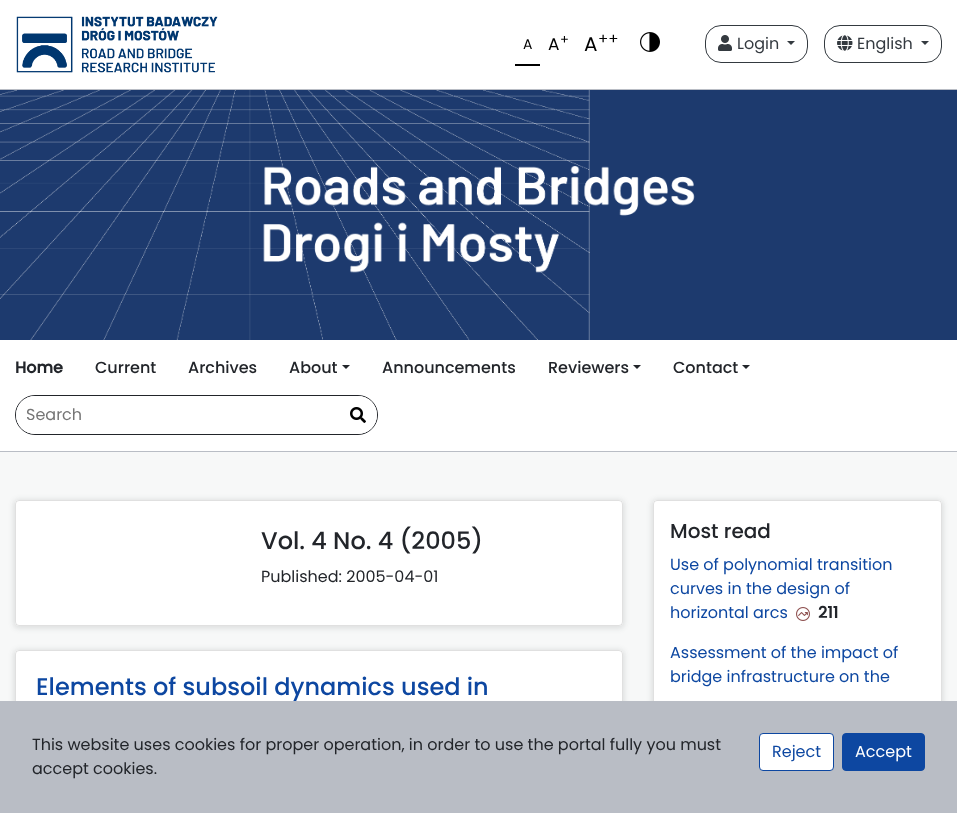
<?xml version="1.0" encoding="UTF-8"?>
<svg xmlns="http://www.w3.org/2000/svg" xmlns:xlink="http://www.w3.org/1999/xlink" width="957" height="813">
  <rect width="100%" height="100%" fill="#f7f8f8" />
  <rect width="957" height="89" fill="#ffffff" />
  <rect y="89" width="957" height="1" fill="#b9bdc5" />
  <image x="16" y="16" width="202" height="57" xlink:href="image1.png" />
  <rect x="515" y="64" width="25" height="2" fill="#000000" />
  <image x="640" y="32" width="20" height="20" xlink:href="image2.png" />
  <rect x="705.5" y="25.5" width="102" height="37" rx="15.5" fill="none" stroke="#343a40" />
  <image x="718" y="35" width="14" height="16" xlink:href="image3.png" />
  <path d="M 787 41 h 8 l -4 4 z" fill="#343a40" />
  <rect x="824.5" y="25.5" width="117" height="37" rx="15.5" fill="none" stroke="#343a40" />
  <image x="837" y="35" width="16" height="16" xlink:href="image4.png" />
  <path d="M 921 41 h 8 l -4 4 z" fill="#343a40" />
  <image x="0" y="90" width="957" height="250" xlink:href="image5.png" />
  <image x="263" y="166" width="432" height="107" xlink:href="image6.png" />
  <rect y="340" width="957" height="111" fill="#ffffff" />
  <rect y="451" width="957" height="1" fill="#b9bdc5" />
  <path d="M 342 365 h 8 l -4 4 z" fill="#22252a" />
  <path d="M 633 365 h 8 l -4 4 z" fill="#22252a" />
  <path d="M 742 365 h 8 l -4 4 z" fill="#22252a" />
  <rect x="15.5" y="395.5" width="362" height="39" rx="19.5" fill="none" stroke="#22252a" />
  <rect x="16" y="396" width="361" height="38" rx="19" fill="#ffffff" />
  <image x="350" y="407" width="16" height="16" xlink:href="image7.png" />
  <rect x="13" y="499" width="612" height="130" rx="6" fill="#22252a" fill-opacity="0.1" filter="blur(2.5px)" />
  <rect x="15" y="500" width="608" height="126" rx="4" fill="#ffffff" />
  <rect x="15.5" y="500.5" width="607" height="125" rx="3.5" fill="none" stroke="#000000" stroke-opacity="0.12" />
  <rect x="13" y="649" width="612" height="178" rx="6" fill="#22252a" fill-opacity="0.1" filter="blur(2.5px)" />
  <rect x="15" y="650" width="608" height="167" rx="4" fill="#ffffff" />
  <rect x="15.5" y="650.5" width="607" height="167" rx="3.5" fill="none" stroke="#000000" stroke-opacity="0.12" />
  <rect x="651" y="499" width="293" height="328" rx="6" fill="#22252a" fill-opacity="0.1" filter="blur(2.5px)" />
  <rect x="653" y="500" width="289" height="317" rx="4" fill="#ffffff" />
  <rect x="653.5" y="500.5" width="288" height="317" rx="3.5" fill="none" stroke="#000000" stroke-opacity="0.12" />
  <image x="796" y="607" width="14" height="14" xlink:href="image8.png" />
  <text x="523" y="49" style="font-family: Poppins; font-size: 14px; fill: #000000">A</text>
  <text x="548" y="50" style="font-family: Poppins; font-size: 17px; fill: #000000">A</text>
  <text x="560" y="44" style="font-family: Poppins; font-size: 13px; fill: #000000">+</text>
  <text x="584" y="51" style="font-family: Poppins; font-size: 20px; fill: #000000">A</text>
  <text x="598" y="44" style="font-family: Poppins; font-size: 15px; fill: #000000">++</text>
  <text x="737" y="49" style="font-family: Poppins; font-size: 16px; fill: #343a40">Login</text>
  <text x="857" y="49" style="font-family: Poppins; font-size: 16px; fill: #343a40">English</text>
  <text x="15" y="373" style="font-family: Poppins; font-size: 16px; font-weight: bold; fill: #22252a">Home</text>
  <text x="95" y="373" style="font-family: Poppins; font-size: 16px; font-weight: 500; fill: #22252a">Current</text>
  <text x="188" y="373" style="font-family: Poppins; font-size: 16px; font-weight: 500; fill: #22252a">Archives</text>
  <text x="289" y="373" style="font-family: Poppins; font-size: 16px; font-weight: 500; fill: #22252a">About</text>
  <text x="382" y="373" style="font-family: Poppins; font-size: 16px; font-weight: 500; fill: #22252a">Announcements</text>
  <text x="548" y="373" style="font-family: Poppins; font-size: 16px; font-weight: 500; fill: #22252a">Reviewers</text>
  <text x="673" y="373" style="font-family: Poppins; font-size: 16px; font-weight: 500; fill: #22252a">Contact</text>
  <text x="26" y="420" style="font-family: Poppins; font-size: 16px; fill: #757575">Search</text>
  <text x="261" y="549" style="font-family: Poppins; font-size: 24px; font-weight: 500; fill: #22252a">Vol. 4 No. 4 (2005)</text>
  <text x="261" y="582" style="font-family: Poppins; font-size: 16px; fill: #22252a">Published: 2005-04-01</text>
  <text x="36" y="695" style="font-family: Poppins; font-size: 24px; font-weight: 500; fill: #0d47a1">Elements of subsoil dynamics used in</text>
  <text x="670" y="538" style="font-family: Poppins; font-size: 20px; font-weight: 500; fill: #22252a">Most read</text>
  <text x="670" y="570" style="font-family: Poppins; font-size: 16px; fill: #0d47a1">Use of polynomial transition</text>
  <text x="670" y="594" style="font-family: Poppins; font-size: 16px; fill: #0d47a1">curves in the design of</text>
  <text x="670" y="618" style="font-family: Poppins; font-size: 16px; fill: #0d47a1">horizontal arcs</text>
  <text x="818" y="618" style="font-family: Poppins; font-size: 16px; font-weight: bold; fill: #22252a">211</text>
  <text x="670" y="658" style="font-family: Poppins; font-size: 16px; fill: #0d47a1">Assessment of the impact of</text>
  <text x="670" y="682" style="font-family: Poppins; font-size: 16px; fill: #0d47a1">bridge infrastructure on the</text>
  <rect y="701" width="957" height="112" fill="#b9bdc5" />
  <text x="32" y="750" style="font-family: Poppins; font-size: 16px; fill: #22252a">This website uses cookies for proper operation, in order to use the portal fully you must</text>
  <text x="32" y="774" style="font-family: Poppins; font-size: 16px; fill: #22252a">accept cookies.</text>
  <rect x="759.5" y="733.5" width="74" height="37" rx="3.5" fill="#ffffff" stroke="#0d47a1" />
  <text x="772" y="757" style="font-family: Poppins; font-size: 16px; fill: #0d47a1">Reject</text>
  <rect x="842.5" y="733.5" width="82" height="37" rx="3.5" fill="#0d47a1" stroke="#0d47a1" />
  <text x="855" y="757" style="font-family: Poppins; font-size: 16px; fill: #ffffff">Accept</text>
</svg>
